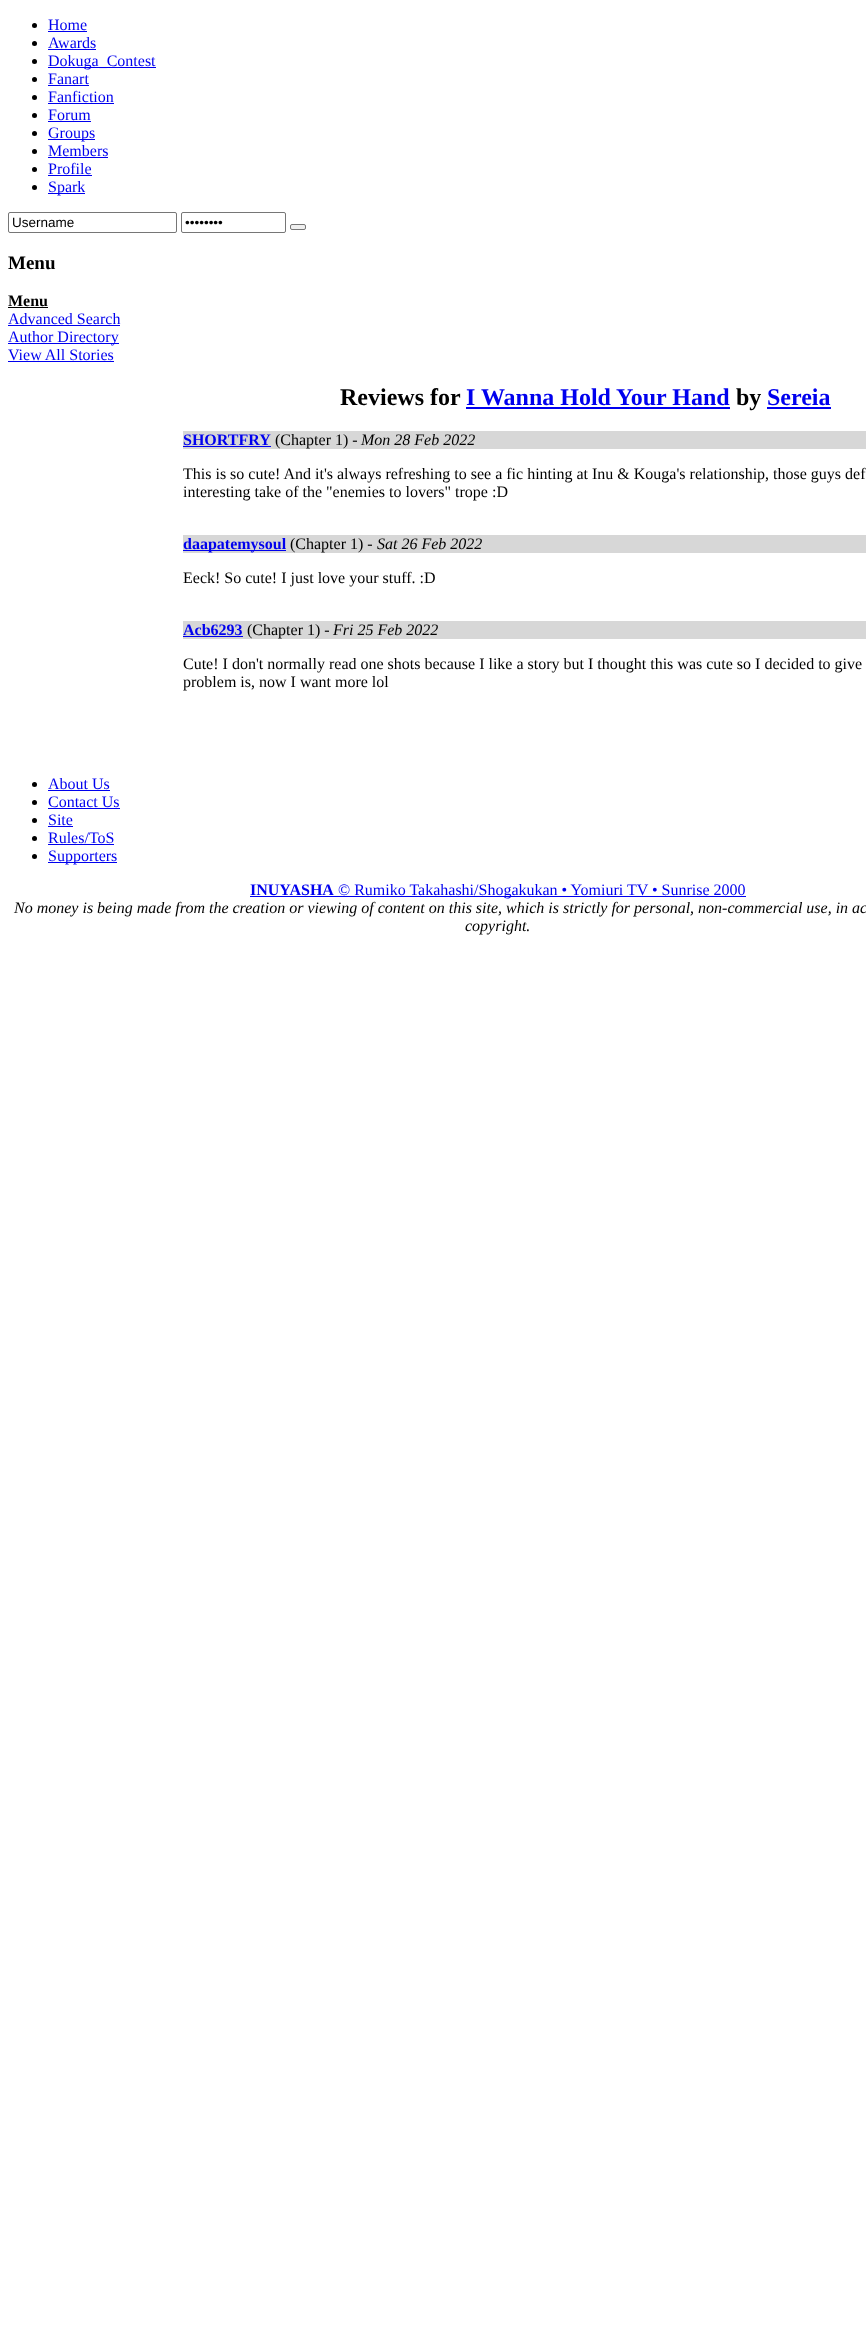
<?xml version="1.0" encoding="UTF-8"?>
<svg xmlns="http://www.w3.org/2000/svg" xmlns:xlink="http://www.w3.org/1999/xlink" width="866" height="2336">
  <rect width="100%" height="100%" fill="#ffffff" />
  <circle cx="34.5" cy="25.5" r="2.5" fill="#000000" />
  <rect x="48" y="31" width="39" height="1" fill="#0000ee" />
  <circle cx="34.5" cy="43.5" r="2.5" fill="#000000" />
  <rect x="48" y="49" width="48" height="1" fill="#0000ee" />
  <circle cx="34.5" cy="61.5" r="2.5" fill="#000000" />
  <rect x="48" y="67" width="108" height="1" fill="#0000ee" />
  <circle cx="34.5" cy="79.5" r="2.5" fill="#000000" />
  <rect x="48" y="85" width="41" height="1" fill="#0000ee" />
  <circle cx="34.5" cy="97.5" r="2.5" fill="#000000" />
  <rect x="48" y="103" width="66" height="1" fill="#0000ee" />
  <circle cx="34.5" cy="115.5" r="2.5" fill="#000000" />
  <rect x="48" y="121" width="43" height="1" fill="#0000ee" />
  <circle cx="34.5" cy="133.5" r="2.5" fill="#000000" />
  <rect x="48" y="139" width="47" height="1" fill="#0000ee" />
  <circle cx="34.5" cy="151.5" r="2.5" fill="#000000" />
  <rect x="48" y="157" width="60" height="1" fill="#0000ee" />
  <circle cx="34.5" cy="169.5" r="2.5" fill="#000000" />
  <rect x="48" y="175" width="44" height="1" fill="#0000ee" />
  <circle cx="34.5" cy="187.5" r="2.5" fill="#000000" />
  <rect x="48" y="193" width="37" height="1" fill="#0000ee" />
  <rect x="8.5" y="212.5" width="168" height="20" rx="1.5" fill="none" stroke="#767676" />
  <rect x="181.5" y="212.5" width="104" height="20" rx="1.5" fill="none" stroke="#767676" />
  <rect x="290.5" y="224.5" width="15" height="5" rx="1.5" fill="#efefef" stroke="#767676" />
  <rect x="8" y="307" width="40" height="1" fill="#000000" />
  <rect x="8" y="325" width="112" height="1" fill="#0000ee" />
  <rect x="8" y="343" width="111" height="1" fill="#0000ee" />
  <rect x="8" y="361" width="106" height="1" fill="#0000ee" />
  <rect x="466" y="407" width="264" height="2" fill="#0000ee" />
  <rect x="767" y="407" width="64" height="2" fill="#0000ee" />
  <rect x="183" y="431" width="683" height="18" fill="#d7d7d7" />
  <rect x="183" y="446" width="88" height="1" fill="#0000ee" />
  <rect x="183" y="535" width="683" height="18" fill="#d7d7d7" />
  <rect x="183" y="550" width="103" height="1" fill="#0000ee" />
  <rect x="183" y="621" width="683" height="18" fill="#d7d7d7" />
  <rect x="183" y="636" width="60" height="1" fill="#0000ee" />
  <circle cx="34.5" cy="784.5" r="2.5" fill="#000000" />
  <rect x="48" y="790" width="62" height="1" fill="#0000ee" />
  <circle cx="34.5" cy="802.5" r="2.5" fill="#000000" />
  <rect x="48" y="808" width="72" height="1" fill="#0000ee" />
  <circle cx="34.5" cy="820.5" r="2.5" fill="#000000" />
  <rect x="48" y="826" width="25" height="1" fill="#0000ee" />
  <circle cx="34.5" cy="838.5" r="2.5" fill="#000000" />
  <rect x="48" y="844" width="66" height="1" fill="#0000ee" />
  <circle cx="34.5" cy="856.5" r="2.5" fill="#000000" />
  <rect x="48" y="862" width="69" height="1" fill="#0000ee" />
  <rect x="250" y="896" width="496" height="1" fill="#0000ee" />
  <text x="48" y="30" style="font-family: Liberation Serif; font-size: 16px; fill: #0000ee">Home</text>
  <text x="48" y="48" style="font-family: Liberation Serif; font-size: 16px; fill: #0000ee">Awards</text>
  <text x="48" y="66" style="font-family: Liberation Serif; font-size: 16px; fill: #0000ee">Dokuga_Contest</text>
  <text x="48" y="84" style="font-family: Liberation Serif; font-size: 16px; fill: #0000ee">Fanart</text>
  <text x="48" y="102" style="font-family: Liberation Serif; font-size: 16px; fill: #0000ee">Fanfiction</text>
  <text x="48" y="120" style="font-family: Liberation Serif; font-size: 16px; fill: #0000ee">Forum</text>
  <text x="48" y="138" style="font-family: Liberation Serif; font-size: 16px; fill: #0000ee">Groups</text>
  <text x="48" y="156" style="font-family: Liberation Serif; font-size: 16px; fill: #0000ee">Members</text>
  <text x="48" y="174" style="font-family: Liberation Serif; font-size: 16px; fill: #0000ee">Profile</text>
  <text x="48" y="192" style="font-family: Liberation Serif; font-size: 16px; fill: #0000ee">Spark</text>
  <text x="12" y="227" style="font-family: Liberation Sans; font-size: 13.5px; fill: #000000">Username</text>
  <text x="185" y="227" style="font-family: Liberation Sans; font-size: 13.5px; fill: #000000">••••••••</text>
  <text x="8" y="269" style="font-family: Liberation Serif; font-size: 19px; font-weight: bold; fill: #000000">Menu</text>
  <text x="8" y="306" style="font-family: Liberation Serif; font-size: 16px; font-weight: bold; fill: #000000">Menu</text>
  <text x="8" y="324" style="font-family: Liberation Serif; font-size: 16px; fill: #0000ee">Advanced Search</text>
  <text x="8" y="342" style="font-family: Liberation Serif; font-size: 16px; fill: #0000ee">Author Directory</text>
  <text x="8" y="360" style="font-family: Liberation Serif; font-size: 16px; fill: #0000ee">View All Stories</text>
  <text x="340" y="405" style="font-family: Liberation Serif; font-size: 24px; font-weight: bold; fill: #000000">Reviews for</text>
  <text x="466" y="405" style="font-family: Liberation Serif; font-size: 24px; font-weight: bold; fill: #0000ee">I Wanna Hold Your Hand</text>
  <text x="736" y="405" style="font-family: Liberation Serif; font-size: 24px; font-weight: bold; fill: #000000">by</text>
  <text x="767" y="405" style="font-family: Liberation Serif; font-size: 24px; font-weight: bold; fill: #0000ee">Sereia</text>
  <text x="183" y="445" style="font-family: Liberation Serif; font-size: 16px; font-weight: bold; fill: #0000ee">SHORTFRY</text>
  <text x="275" y="445" style="font-family: Liberation Serif; font-size: 16px; fill: #000000">(Chapter 1) -</text>
  <text x="361" y="445" style="font-family: Liberation Serif; font-size: 16px; font-style: italic; fill: #000000">Mon 28 Feb 2022</text>
  <text x="183" y="479" style="font-family: Liberation Serif; font-size: 16px; fill: #000000">This is so cute! And it's always refreshing to see a fic hinting at Inu &amp; Kouga's relationship, those guys def</text>
  <text x="183" y="497" style="font-family: Liberation Serif; font-size: 16px; fill: #000000">interesting take of the "enemies to lovers" trope :D</text>
  <text x="183" y="549" style="font-family: Liberation Serif; font-size: 16px; font-weight: bold; fill: #0000ee">daapatemysoul</text>
  <text x="290" y="549" style="font-family: Liberation Serif; font-size: 16px; fill: #000000">(Chapter 1) -</text>
  <text x="377" y="549" style="font-family: Liberation Serif; font-size: 16px; font-style: italic; fill: #000000">Sat 26 Feb 2022</text>
  <text x="183" y="583" style="font-family: Liberation Serif; font-size: 16px; fill: #000000">Eeck! So cute! I just love your stuff. :D</text>
  <text x="183" y="635" style="font-family: Liberation Serif; font-size: 16px; font-weight: bold; fill: #0000ee">Acb6293</text>
  <text x="247" y="635" style="font-family: Liberation Serif; font-size: 16px; fill: #000000">(Chapter 1) -</text>
  <text x="333" y="635" style="font-family: Liberation Serif; font-size: 16px; font-style: italic; fill: #000000">Fri 25 Feb 2022</text>
  <text x="183" y="669" style="font-family: Liberation Serif; font-size: 16px; fill: #000000">Cute! I don't normally read one shots because I like a story but I thought this was cute so I decided to give</text>
  <text x="183" y="687" style="font-family: Liberation Serif; font-size: 16px; fill: #000000">problem is, now I want more lol</text>
  <text x="48" y="789" style="font-family: Liberation Serif; font-size: 16px; fill: #0000ee">About Us</text>
  <text x="48" y="807" style="font-family: Liberation Serif; font-size: 16px; fill: #0000ee">Contact Us</text>
  <text x="48" y="825" style="font-family: Liberation Serif; font-size: 16px; fill: #0000ee">Site</text>
  <text x="48" y="843" style="font-family: Liberation Serif; font-size: 16px; fill: #0000ee">Rules/ToS</text>
  <text x="48" y="861" style="font-family: Liberation Serif; font-size: 16px; fill: #0000ee">Supporters</text>
  <text x="250" y="895" style="font-family: Liberation Serif; font-size: 16px; font-weight: bold; fill: #0000ee">INUYASHA</text>
  <text x="338" y="895" style="font-family: Liberation Serif; font-size: 16px; fill: #0000ee">© Rumiko Takahashi/Shogakukan • Yomiuri TV • Sunrise 2000</text>
  <text x="14" y="913" style="font-family: Liberation Serif; font-size: 16px; font-style: italic; fill: #000000">No money is being made from the creation or viewing of content on this site, which is strictly for personal, non-commercial use, in ac</text>
  <text x="465" y="931" style="font-family: Liberation Serif; font-size: 16px; font-style: italic; fill: #000000">copyright.</text>
</svg>
